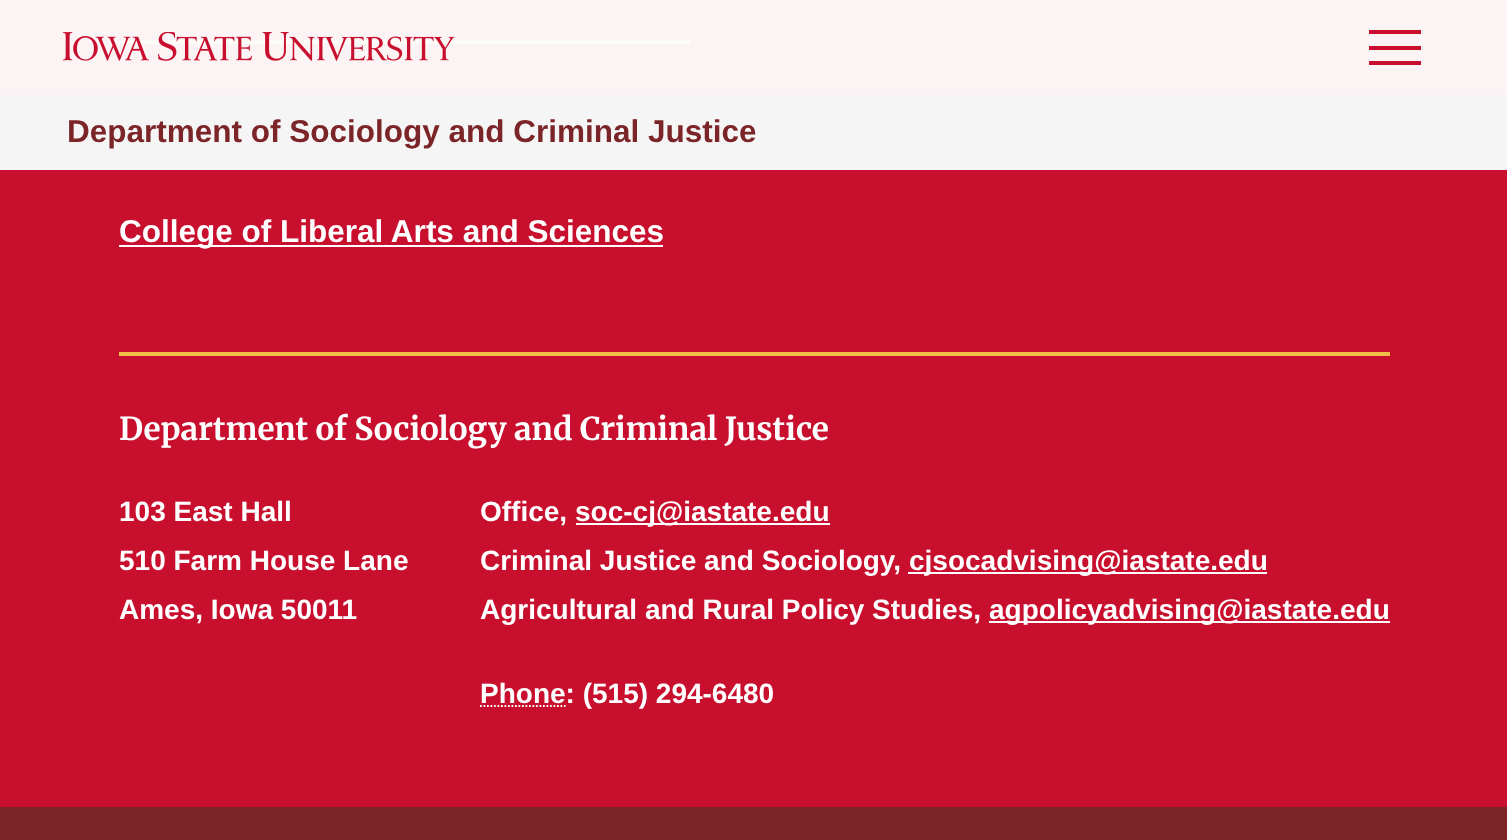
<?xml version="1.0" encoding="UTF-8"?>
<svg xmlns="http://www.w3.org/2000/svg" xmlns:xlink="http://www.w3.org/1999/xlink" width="1507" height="840">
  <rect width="100%" height="100%" fill="#c8102e" />
  <rect width="1507" height="95" fill="#fcf3f5" />
  <rect x="1369" y="30" width="52" height="4" fill="#c8102e" />
  <rect x="1369" y="46" width="52" height="4" fill="#c8102e" />
  <rect x="1369" y="61" width="52" height="4" fill="#c8102e" />
  <rect x="119" y="40" width="571" height="4" fill="#fefcf6" />
  <image x="63" y="32" width="392" height="29" xlink:href="image1.png" />
  <rect y="95" width="1507" height="75" fill="#f5f5f5" />
  <rect x="119" y="352" width="1271" height="4" fill="#f1be48" />
  <rect x="119" y="245" width="544" height="2" fill="#ffffff" />
  <rect x="576" y="523" width="254" height="2" fill="#ffffff" />
  <rect x="908" y="572" width="359" height="2" fill="#ffffff" />
  <rect x="989" y="621" width="401" height="2" fill="#ffffff" />
  <path d="M 480 706 h 85.5" fill="none" stroke="#ffffff" stroke-width="1.8" stroke-dasharray="1.75 1.75" />
  <rect y="807" width="1507" height="33" fill="#7c2529" />
  <text x="67" y="142" style="font-family: Liberation Sans; font-size: 31.5px; font-weight: bold; fill: #7c2529">Department of Sociology and Criminal Justice</text>
  <text x="119" y="242" style="font-family: Liberation Sans; font-size: 31.5px; font-weight: bold; fill: #ffffff">College of Liberal Arts and Sciences</text>
  <text x="119" y="440" style="font-family: Merriweather; font-size: 31.5px; font-weight: bold; fill: #ffffff">Department of Sociology and Criminal Justice</text>
  <text x="119" y="521" style="font-family: Liberation Sans; font-size: 28px; font-weight: bold; fill: #ffffff">103 East Hall</text>
  <text x="119" y="570" style="font-family: Liberation Sans; font-size: 28px; font-weight: bold; fill: #ffffff">510 Farm House Lane</text>
  <text x="119" y="619" style="font-family: Liberation Sans; font-size: 28px; font-weight: bold; fill: #ffffff">Ames, Iowa 50011</text>
  <text x="480" y="521" style="font-family: Liberation Sans; font-size: 28px; font-weight: bold; fill: #ffffff">Office,</text>
  <text x="575" y="521" style="font-family: Liberation Sans; font-size: 28px; font-weight: bold; fill: #ffffff">soc-cj@iastate.edu</text>
  <text x="480" y="570" style="font-family: Liberation Sans; font-size: 28px; font-weight: bold; fill: #ffffff">Criminal Justice and Sociology,</text>
  <text x="909" y="570" style="font-family: Liberation Sans; font-size: 28px; font-weight: bold; fill: #ffffff">cjsocadvising@iastate.edu</text>
  <text x="480" y="619" style="font-family: Liberation Sans; font-size: 28px; font-weight: bold; fill: #ffffff">Agricultural and Rural Policy Studies,</text>
  <text x="989" y="619" style="font-family: Liberation Sans; font-size: 28px; font-weight: bold; fill: #ffffff">agpolicyadvising@iastate.edu</text>
  <text x="480" y="703" style="font-family: Liberation Sans; font-size: 28px; font-weight: bold; fill: #ffffff">Phone: (515) 294-6480</text>
</svg>
